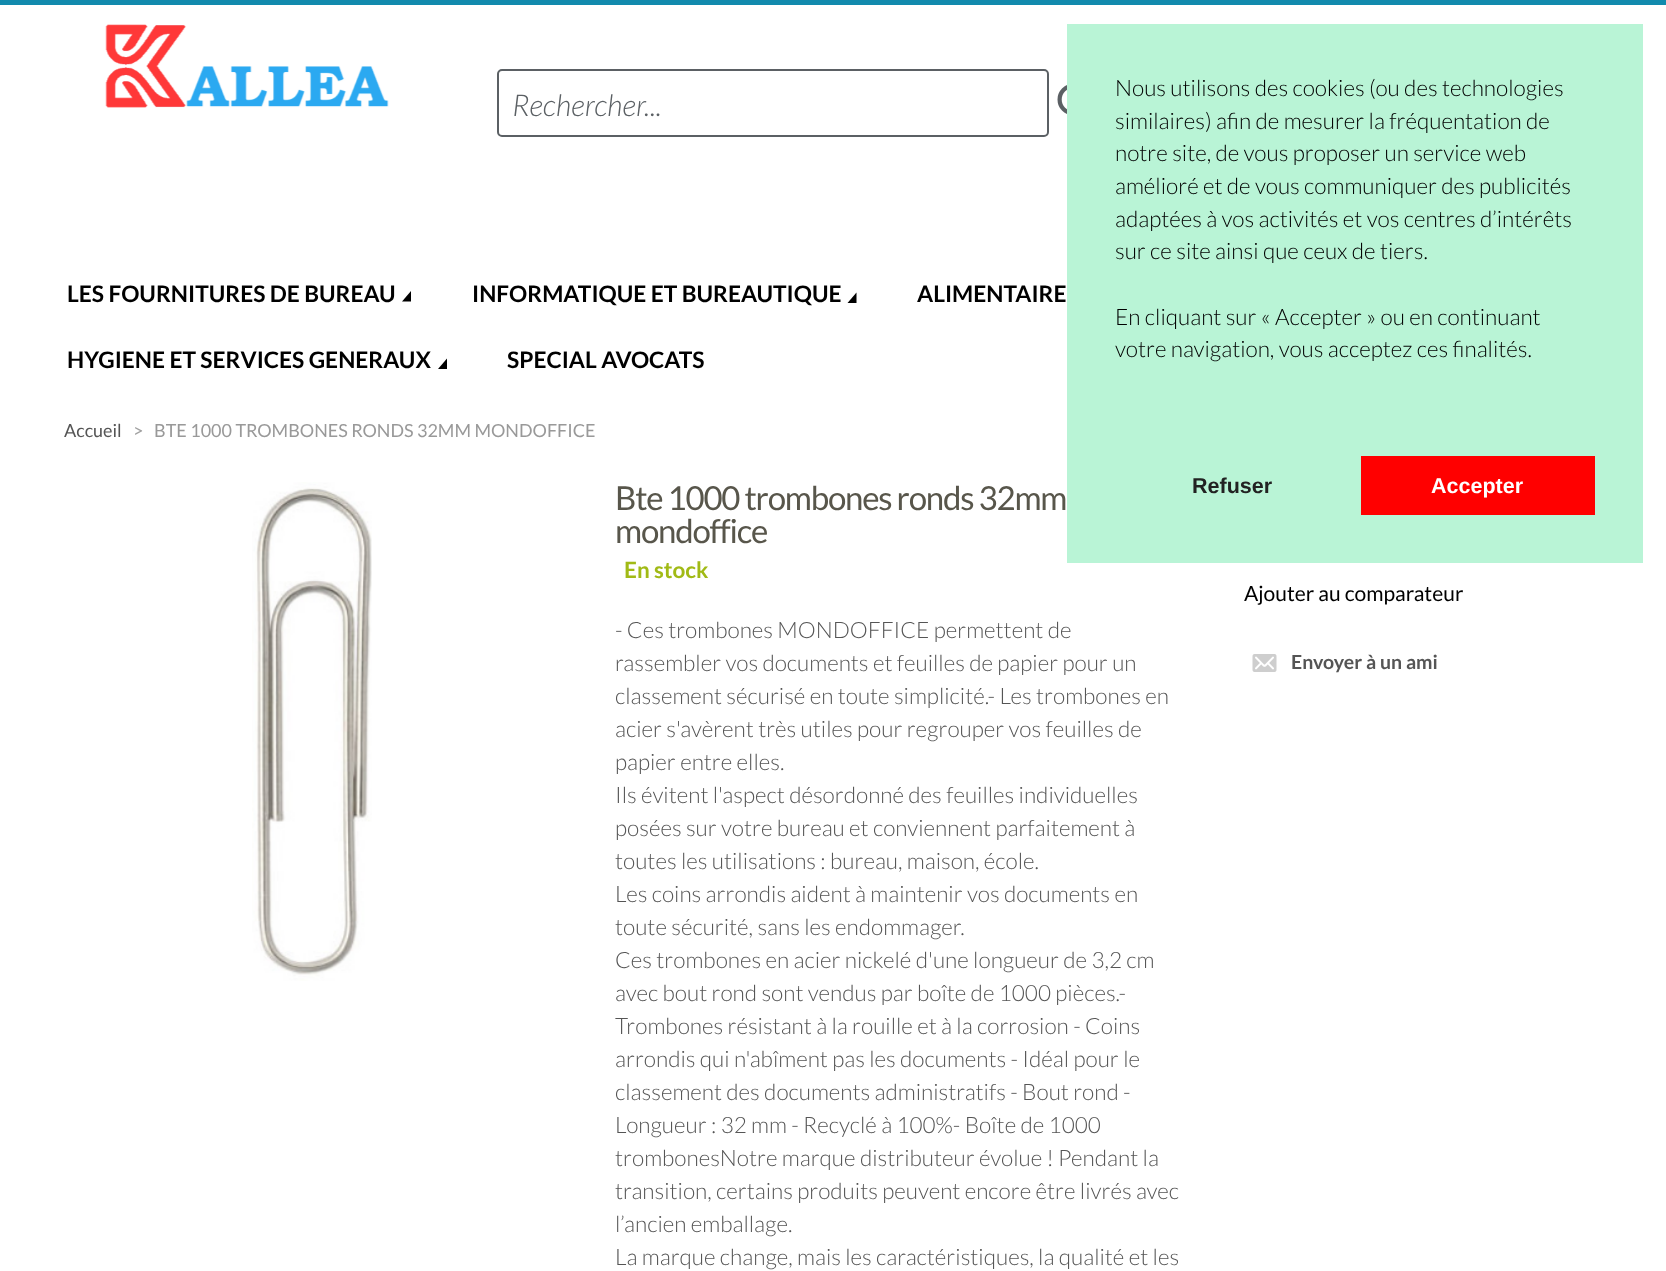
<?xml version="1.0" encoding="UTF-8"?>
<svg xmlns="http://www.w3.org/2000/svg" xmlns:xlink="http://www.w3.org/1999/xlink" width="1666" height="1271">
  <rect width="100%" height="100%" fill="#ffffff" />
  <rect width="1666" height="5" fill="#128aad" />
  <rect x="1067" y="24" width="576" height="539" fill="#b9f4d6" />
  <rect x="1361" y="456" width="234" height="59" fill="#ff0000" />
  <image x="105" y="24" width="284" height="84" xlink:href="image1.png" />
  <rect x="498" y="70" width="550" height="66" rx="4" fill="none" stroke="#5b6064" stroke-width="2" />
  <image x="1057" y="85" width="10" height="29" xlink:href="image2.png" />
  <path d="M 411 301.5 h -9 l 9 -10.5 z" fill="#000000" />
  <path d="M 856.5 303 h -9 l 9 -10.5 z" fill="#000000" />
  <path d="M 447 369 h -9 l 9 -10.5 z" fill="#000000" />
  <image x="252" y="482" width="120" height="499" xlink:href="image3.png" />
  <image x="1252" y="654" width="25" height="18" xlink:href="image4.png" />
  <text x="1115" y="96" style="font-family: Lato; font-size: 22.5px; font-weight: 300; fill: #000000">Nous utilisons des cookies (ou des technologies</text>
  <text x="1115" y="129" style="font-family: Lato; font-size: 22.5px; font-weight: 300; fill: #000000">similaires) afin de mesurer la fréquentation de</text>
  <text x="1115" y="161" style="font-family: Lato; font-size: 22.5px; font-weight: 300; fill: #000000">notre site, de vous proposer un service web</text>
  <text x="1115" y="194" style="font-family: Lato; font-size: 22.5px; font-weight: 300; fill: #000000">amélioré et de vous communiquer des publicités</text>
  <text x="1115" y="227" style="font-family: Lato; font-size: 22.5px; font-weight: 300; fill: #000000">adaptées à vos activités et vos centres d’intérêts</text>
  <text x="1115" y="259" style="font-family: Lato; font-size: 22.5px; font-weight: 300; fill: #000000">sur ce site ainsi que ceux de tiers.</text>
  <text x="1115" y="325" style="font-family: Lato; font-size: 22.5px; font-weight: 300; fill: #000000">En cliquant sur « Accepter » ou en continuant</text>
  <text x="1115" y="357" style="font-family: Lato; font-size: 22.5px; font-weight: 300; fill: #000000">votre navigation, vous acceptez ces finalités.</text>
  <text x="1192" y="493" style="font-family: Liberation Sans; font-size: 21.5px; font-weight: bold; fill: #222222">Refuser</text>
  <text x="1431" y="493" style="font-family: Liberation Sans; font-size: 21.5px; font-weight: bold; fill: #ffffff">Accepter</text>
  <text x="512" y="116" style="font-family: Lato; font-size: 30px; font-weight: 300; font-style: italic; fill: #5b6064">Rechercher...</text>
  <text x="67" y="302" style="font-family: Lato; font-size: 22.75px; font-weight: bold; fill: #000000">LES FOURNITURES DE BUREAU</text>
  <text x="472" y="302" style="font-family: Lato; font-size: 22.75px; font-weight: bold; fill: #000000">INFORMATIQUE ET BUREAUTIQUE</text>
  <text x="917" y="302" style="font-family: Lato; font-size: 22.75px; font-weight: bold; fill: #000000">ALIMENTAIRE</text>
  <text x="67" y="368" style="font-family: Lato; font-size: 22.75px; font-weight: bold; fill: #000000">HYGIENE ET SERVICES GENERAUX</text>
  <text x="507" y="368" style="font-family: Lato; font-size: 22.75px; font-weight: bold; fill: #000000">SPECIAL AVOCATS</text>
  <text x="64" y="437" style="font-family: Lato; font-size: 18px; fill: #555555">Accueil</text>
  <text x="133" y="437" style="font-family: Lato; font-size: 18px; fill: #a0a0a0">&gt;</text>
  <text x="154" y="437" style="font-family: Lato; font-size: 18px; fill: #999999">BTE 1000 TROMBONES RONDS 32MM MONDOFFICE</text>
  <text x="615" y="510" style="font-family: Lato; font-size: 33px; letter-spacing: -1.2px; fill: #58564b">Bte 1000 trombones ronds 32mm</text>
  <text x="615" y="543" style="font-family: Lato; font-size: 33px; letter-spacing: -1.2px; fill: #58564b">mondoffice</text>
  <text x="624" y="578" style="font-family: Lato; font-size: 22.5px; font-weight: bold; fill: #a1ba16">En stock</text>
  <text x="615" y="638" style="font-family: Lato; font-size: 22.5px; font-weight: 300; fill: #555555">- Ces trombones MONDOFFICE permettent de</text>
  <text x="615" y="671" style="font-family: Lato; font-size: 22.5px; font-weight: 300; fill: #555555">rassembler vos documents et feuilles de papier pour un</text>
  <text x="615" y="704" style="font-family: Lato; font-size: 22.5px; font-weight: 300; fill: #555555">classement sécurisé en toute simplicité.- Les trombones en</text>
  <text x="615" y="737" style="font-family: Lato; font-size: 22.5px; font-weight: 300; fill: #555555">acier s'avèrent très utiles pour regrouper vos feuilles de</text>
  <text x="615" y="770" style="font-family: Lato; font-size: 22.5px; font-weight: 300; fill: #555555">papier entre elles.</text>
  <text x="615" y="803" style="font-family: Lato; font-size: 22.5px; font-weight: 300; fill: #555555">Ils évitent l'aspect désordonné des feuilles individuelles</text>
  <text x="615" y="836" style="font-family: Lato; font-size: 22.5px; font-weight: 300; fill: #555555">posées sur votre bureau et conviennent parfaitement à</text>
  <text x="615" y="869" style="font-family: Lato; font-size: 22.5px; font-weight: 300; fill: #555555">toutes les utilisations : bureau, maison, école.</text>
  <text x="615" y="902" style="font-family: Lato; font-size: 22.5px; font-weight: 300; fill: #555555">Les coins arrondis aident à maintenir vos documents en</text>
  <text x="615" y="935" style="font-family: Lato; font-size: 22.5px; font-weight: 300; fill: #555555">toute sécurité, sans les endommager.</text>
  <text x="615" y="968" style="font-family: Lato; font-size: 22.5px; font-weight: 300; fill: #555555">Ces trombones en acier nickelé d'une longueur de 3,2 cm</text>
  <text x="615" y="1001" style="font-family: Lato; font-size: 22.5px; font-weight: 300; fill: #555555">avec bout rond sont vendus par boîte de 1000 pièces.-</text>
  <text x="615" y="1034" style="font-family: Lato; font-size: 22.5px; font-weight: 300; fill: #555555">Trombones résistant à la rouille et à la corrosion - Coins</text>
  <text x="615" y="1067" style="font-family: Lato; font-size: 22.5px; font-weight: 300; fill: #555555">arrondis qui n'abîment pas les documents - Idéal pour le</text>
  <text x="615" y="1100" style="font-family: Lato; font-size: 22.5px; font-weight: 300; fill: #555555">classement des documents administratifs - Bout rond -</text>
  <text x="615" y="1133" style="font-family: Lato; font-size: 22.5px; font-weight: 300; fill: #555555">Longueur : 32 mm - Recyclé à 100%- Boîte de 1000</text>
  <text x="615" y="1166" style="font-family: Lato; font-size: 22.5px; font-weight: 300; fill: #555555">trombonesNotre marque distributeur évolue ! Pendant la</text>
  <text x="615" y="1199" style="font-family: Lato; font-size: 22.5px; font-weight: 300; fill: #555555">transition, certains produits peuvent encore être livrés avec</text>
  <text x="615" y="1232" style="font-family: Lato; font-size: 22.5px; font-weight: 300; fill: #555555">l’ancien emballage.</text>
  <text x="615" y="1265" style="font-family: Lato; font-size: 22.5px; font-weight: 300; fill: #555555">La marque change, mais les caractéristiques, la qualité et les</text>
  <text x="1244" y="601" style="font-family: Lato; font-size: 21px; fill: #000000">Ajouter au comparateur</text>
  <text x="1291" y="669" style="font-family: Lato; font-size: 19.5px; font-weight: bold; fill: #555555">Envoyer à un ami</text>
</svg>
